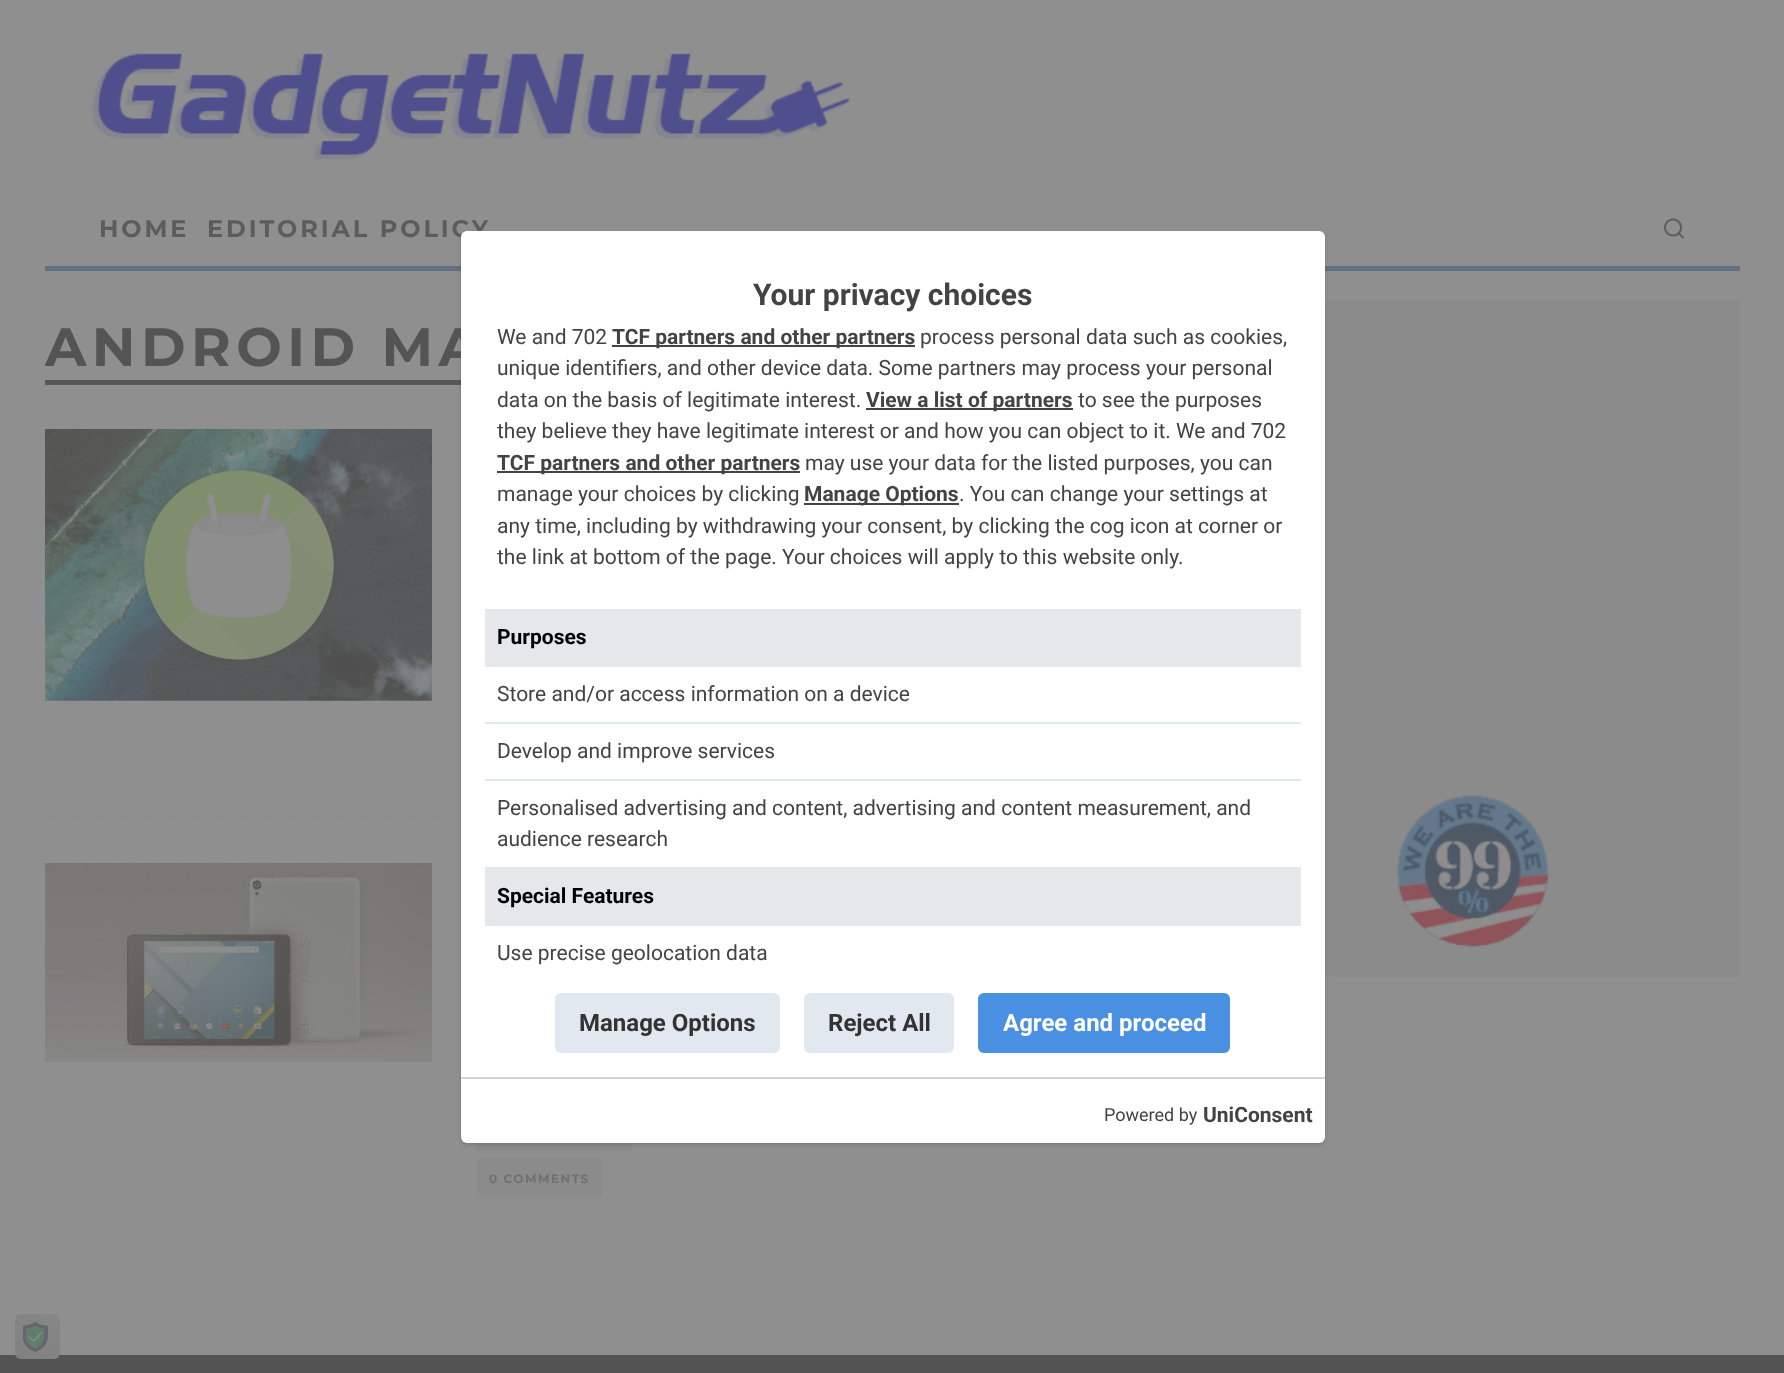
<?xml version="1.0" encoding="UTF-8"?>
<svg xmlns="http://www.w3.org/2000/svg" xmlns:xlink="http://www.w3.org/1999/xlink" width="1784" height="1373">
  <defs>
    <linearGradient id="g1" gradientUnits="userSpaceOnUse" x1="19" y1="1362" x2="56" y2="1311"><stop offset="0" stop-color="#818181" /><stop offset="1" stop-color="#878787" /></linearGradient>
  </defs>
  <rect width="100%" height="100%" fill="#8f8f8f" />
  <image x="92" y="53" width="758" height="107" xlink:href="image1.png" />
  <rect x="45" y="266" width="1695" height="5" fill="#61717f" />
  <image x="1664" y="218" width="20" height="21" xlink:href="image2.png" />
  <rect x="45" y="380" width="416" height="5" fill="#575757" />
  <path d="M 45 817 h 1114.5" fill="none" stroke="#8b8b8b" stroke-width="1.5" stroke-dasharray="1.5 1.5" />
  <image x="45" y="429" width="387" height="272" xlink:href="image3.png" />
  <image x="45" y="863" width="387" height="199" xlink:href="image4.png" />
  <rect x="477" y="1143" width="155" height="8" fill="#8b8b8b" />
  <rect x="477" y="1158" width="125" height="39" fill="#8b8b8b" />
  <rect x="1325" y="300" width="415" height="677" fill="#8b8b8b" />
  <image x="1396" y="794" width="153" height="153" xlink:href="image5.png" />
  <rect y="1355" width="1784" height="18" fill="#535353" />
  <rect x="462" y="234" width="861" height="909" rx="5" fill="#000000" fill-opacity="0.1" filter="blur(1.5px)" />
  <rect x="461" y="233" width="864" height="912" rx="6" fill="#000000" fill-opacity="0.1" filter="blur(2px)" />
  <rect x="15" y="1314" width="45" height="45" rx="6" fill="url(#g1)" />
  <image x="23" y="1322" width="25" height="30" xlink:href="image6.png" />
  <text x="99" y="237" style="font-family: Montserrat; font-size: 24px; font-weight: bold; letter-spacing: 2.9px; fill: #5c5c5c">HOME</text>
  <text x="207" y="237" style="font-family: Montserrat; font-size: 24px; font-weight: bold; letter-spacing: 2.9px; fill: #5c5c5c">EDITORIAL POLICY</text>
  <text x="45" y="366" style="font-family: Montserrat; font-size: 54px; font-weight: bold; letter-spacing: 5.5px; fill: #545454">ANDROID MA</text>
  <text x="489" y="1183" style="font-family: Montserrat; font-size: 12px; font-weight: bold; letter-spacing: 1.5px; fill: #707070">0 COMMENTS</text>
  <rect x="461" y="231" width="864" height="912" rx="6" fill="#ffffff" />
  <text x="753" y="305" style="font-family: Roboto; font-size: 30px; font-weight: bold; fill: #434343">Your privacy choices</text>
  <text x="497" y="344" style="font-family: Roboto; font-size: 21px; fill: #434343">We and 702</text>
  <rect x="612" y="345" width="303" height="2" fill="#434343" />
  <text x="612" y="344" style="font-family: Roboto; font-size: 21px; font-weight: bold; fill: #434343">TCF partners and other partners</text>
  <text x="920" y="344" style="font-family: Roboto; font-size: 21px; fill: #434343">process personal data such as cookies,</text>
  <text x="497" y="375" style="font-family: Roboto; font-size: 21px; fill: #434343">unique identifiers, and other device data. Some partners may process your personal</text>
  <text x="497" y="407" style="font-family: Roboto; font-size: 21px; fill: #434343">data on the basis of legitimate interest.</text>
  <rect x="866" y="408" width="207" height="2" fill="#434343" />
  <text x="866" y="407" style="font-family: Roboto; font-size: 21px; font-weight: bold; fill: #434343">View a list of partners</text>
  <text x="1078" y="407" style="font-family: Roboto; font-size: 21px; fill: #434343">to see the purposes</text>
  <text x="497" y="438" style="font-family: Roboto; font-size: 21px; fill: #434343">they believe they have legitimate interest or and how you can object to it. We and 702</text>
  <rect x="497" y="471" width="303" height="2" fill="#434343" />
  <text x="497" y="470" style="font-family: Roboto; font-size: 21px; font-weight: bold; fill: #434343">TCF partners and other partners</text>
  <text x="805" y="470" style="font-family: Roboto; font-size: 21px; fill: #434343">may use your data for the listed purposes, you can</text>
  <text x="497" y="501" style="font-family: Roboto; font-size: 21px; fill: #434343">manage your choices by clicking</text>
  <rect x="804" y="503" width="155" height="2" fill="#434343" />
  <text x="804" y="501" style="font-family: Roboto; font-size: 21px; font-weight: bold; fill: #434343">Manage Options</text>
  <text x="959" y="501" style="font-family: Roboto; font-size: 21px; fill: #434343">. You can change your settings at</text>
  <text x="497" y="533" style="font-family: Roboto; font-size: 21px; fill: #434343">any time, including by withdrawing your consent, by clicking the cog icon at corner or</text>
  <text x="497" y="564" style="font-family: Roboto; font-size: 21px; fill: #434343">the link at bottom of the page. Your choices will apply to this website only.</text>
  <rect x="485" y="609" width="816" height="56" fill="#e5e7eb" />
  <rect x="485" y="665" width="816" height="2" fill="#e2e8f0" />
  <text x="497" y="644" style="font-family: Roboto; font-size: 21px; font-weight: bold; fill: #000000">Purposes</text>
  <rect x="485" y="722" width="816" height="2" fill="#e2e8f0" />
  <text x="497" y="701" style="font-family: Roboto; font-size: 21px; fill: #434343">Store and/or access information on a device</text>
  <rect x="485" y="779" width="816" height="2" fill="#e2e8f0" />
  <text x="497" y="758" style="font-family: Roboto; font-size: 21px; fill: #434343">Develop and improve services</text>
  <rect x="485" y="867" width="816" height="2" fill="#e2e8f0" />
  <text x="497" y="815" style="font-family: Roboto; font-size: 21px; fill: #434343">Personalised advertising and content, advertising and content measurement, and</text>
  <text x="497" y="846" style="font-family: Roboto; font-size: 21px; fill: #434343">audience research</text>
  <rect x="485" y="869" width="816" height="55" fill="#e5e7eb" />
  <rect x="485" y="924" width="816" height="2" fill="#e2e8f0" />
  <text x="497" y="903" style="font-family: Roboto; font-size: 21px; font-weight: bold; fill: #000000">Special Features</text>
  <text x="497" y="960" style="font-family: Roboto; font-size: 21px; fill: #434343">Use precise geolocation data</text>
  <rect x="555" y="993" width="225" height="60" rx="6" fill="#e2e8f0" />
  <text x="579" y="1031" style="font-family: Roboto; font-size: 24px; font-weight: bold; fill: #333333">Manage Options</text>
  <rect x="804" y="993" width="150" height="60" rx="6" fill="#e2e8f0" />
  <text x="828" y="1031" style="font-family: Roboto; font-size: 24px; font-weight: bold; fill: #333333">Reject All</text>
  <rect x="978" y="993" width="252" height="60" rx="6" fill="#4a90e2" />
  <text x="1003" y="1031" style="font-family: Roboto; font-size: 24px; font-weight: bold; fill: #ffffff">Agree and proceed</text>
  <rect x="461" y="1077" width="864" height="2" fill="#d1d5db" />
  <text x="1104" y="1121" style="font-family: Roboto; font-size: 18px; fill: #434343">Powered by</text>
  <text x="1203" y="1122" style="font-family: Roboto; font-size: 21px; font-weight: bold; fill: #434343">UniConsent</text>
</svg>
